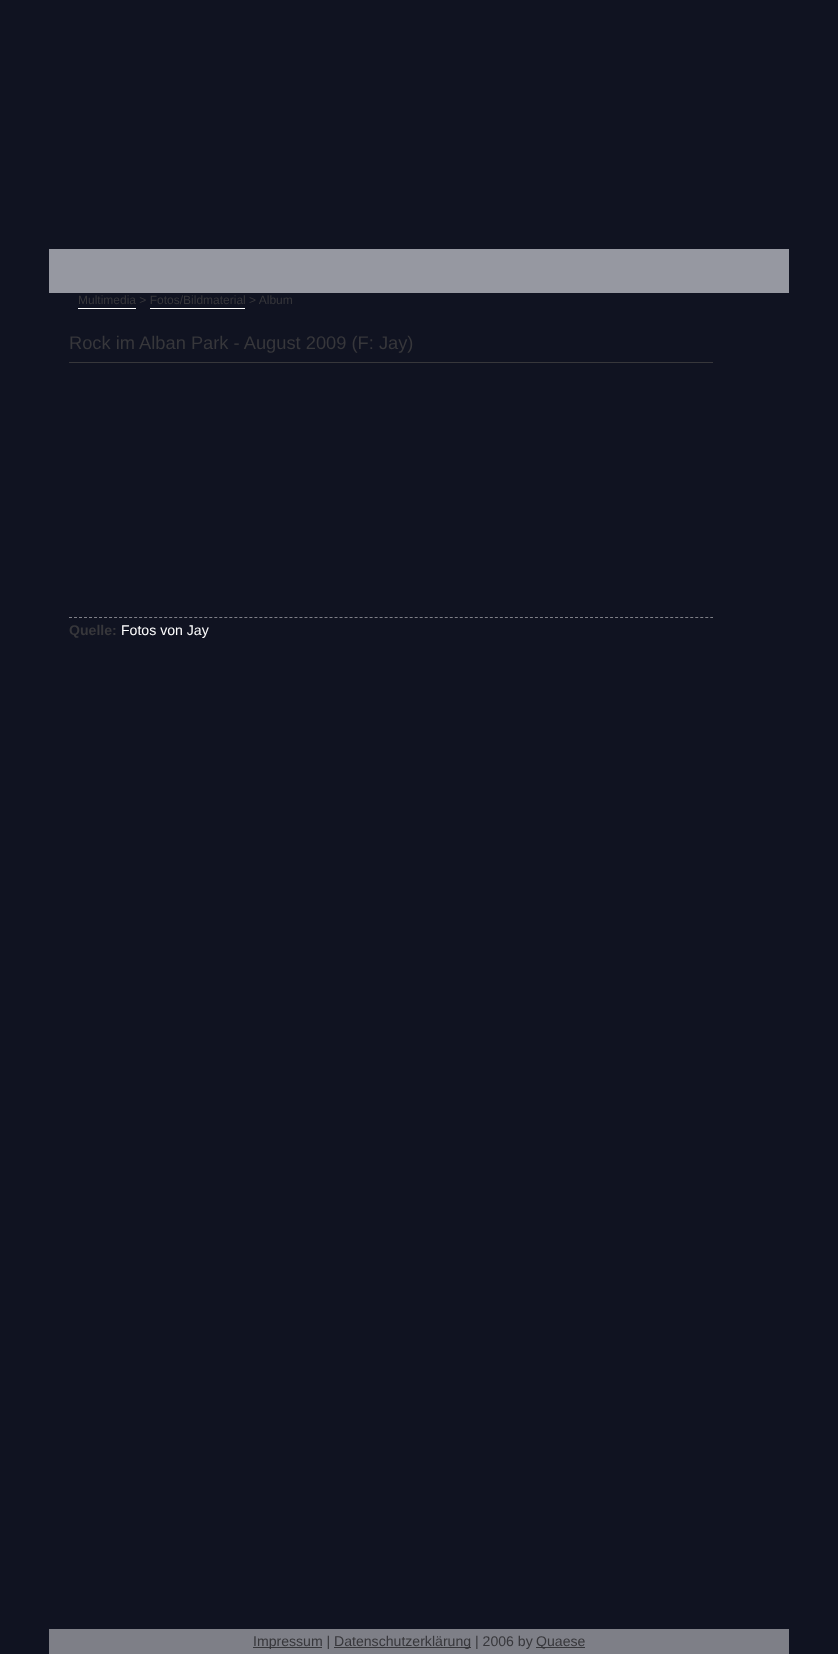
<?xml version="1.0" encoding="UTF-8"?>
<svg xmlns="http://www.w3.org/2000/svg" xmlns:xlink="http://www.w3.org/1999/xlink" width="838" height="1654">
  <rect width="100%" height="100%" fill="#101321" />
  <rect x="49" y="249" width="740" height="44" fill="#9698a1" />
  <rect x="78" y="308" width="58" height="1" fill="#ffffff" />
  <rect x="150" y="308" width="95" height="1" fill="#ffffff" />
  <rect x="69" y="362" width="644" height="1" fill="#37373b" />
  <path d="M 69 617.5 h 644" fill="none" stroke="#7e7f87" stroke-dasharray="3 2.01" />
  <rect x="49" y="1629" width="740" height="25" fill="#7e7f87" />
  <rect x="253" y="1647" width="69" height="1" fill="#37373b" />
  <rect x="334" y="1647" width="137" height="1" fill="#37373b" />
  <rect x="536" y="1647" width="49" height="1" fill="#37373b" />
  <text x="78" y="304" style="font-family: Liberation Sans; font-size: 12px; fill: #37373b">Multimedia &gt; Fotos/Bildmaterial &gt; Album</text>
  <text x="69" y="349" style="font-family: Liberation Sans; font-size: 18.3px; fill: #37373b">Rock im Alban Park - August 2009 (F: Jay)</text>
  <text x="69" y="635" style="font-family: Liberation Sans; font-size: 14.1px; font-weight: bold; fill: #37373b">Quelle:</text>
  <text x="121" y="635" style="font-family: Liberation Sans; font-size: 14.1px; fill: #ffffff">Fotos von Jay</text>
  <text x="253" y="1646" style="font-family: Liberation Sans; font-size: 14.1px; fill: #37373b">Impressum |</text>
  <text x="334" y="1646" style="font-family: Liberation Sans; font-size: 14.1px; fill: #37373b">Datenschutzerklärung | 2006 by</text>
  <text x="536" y="1646" style="font-family: Liberation Sans; font-size: 14.1px; fill: #37373b">Quaese</text>
</svg>
